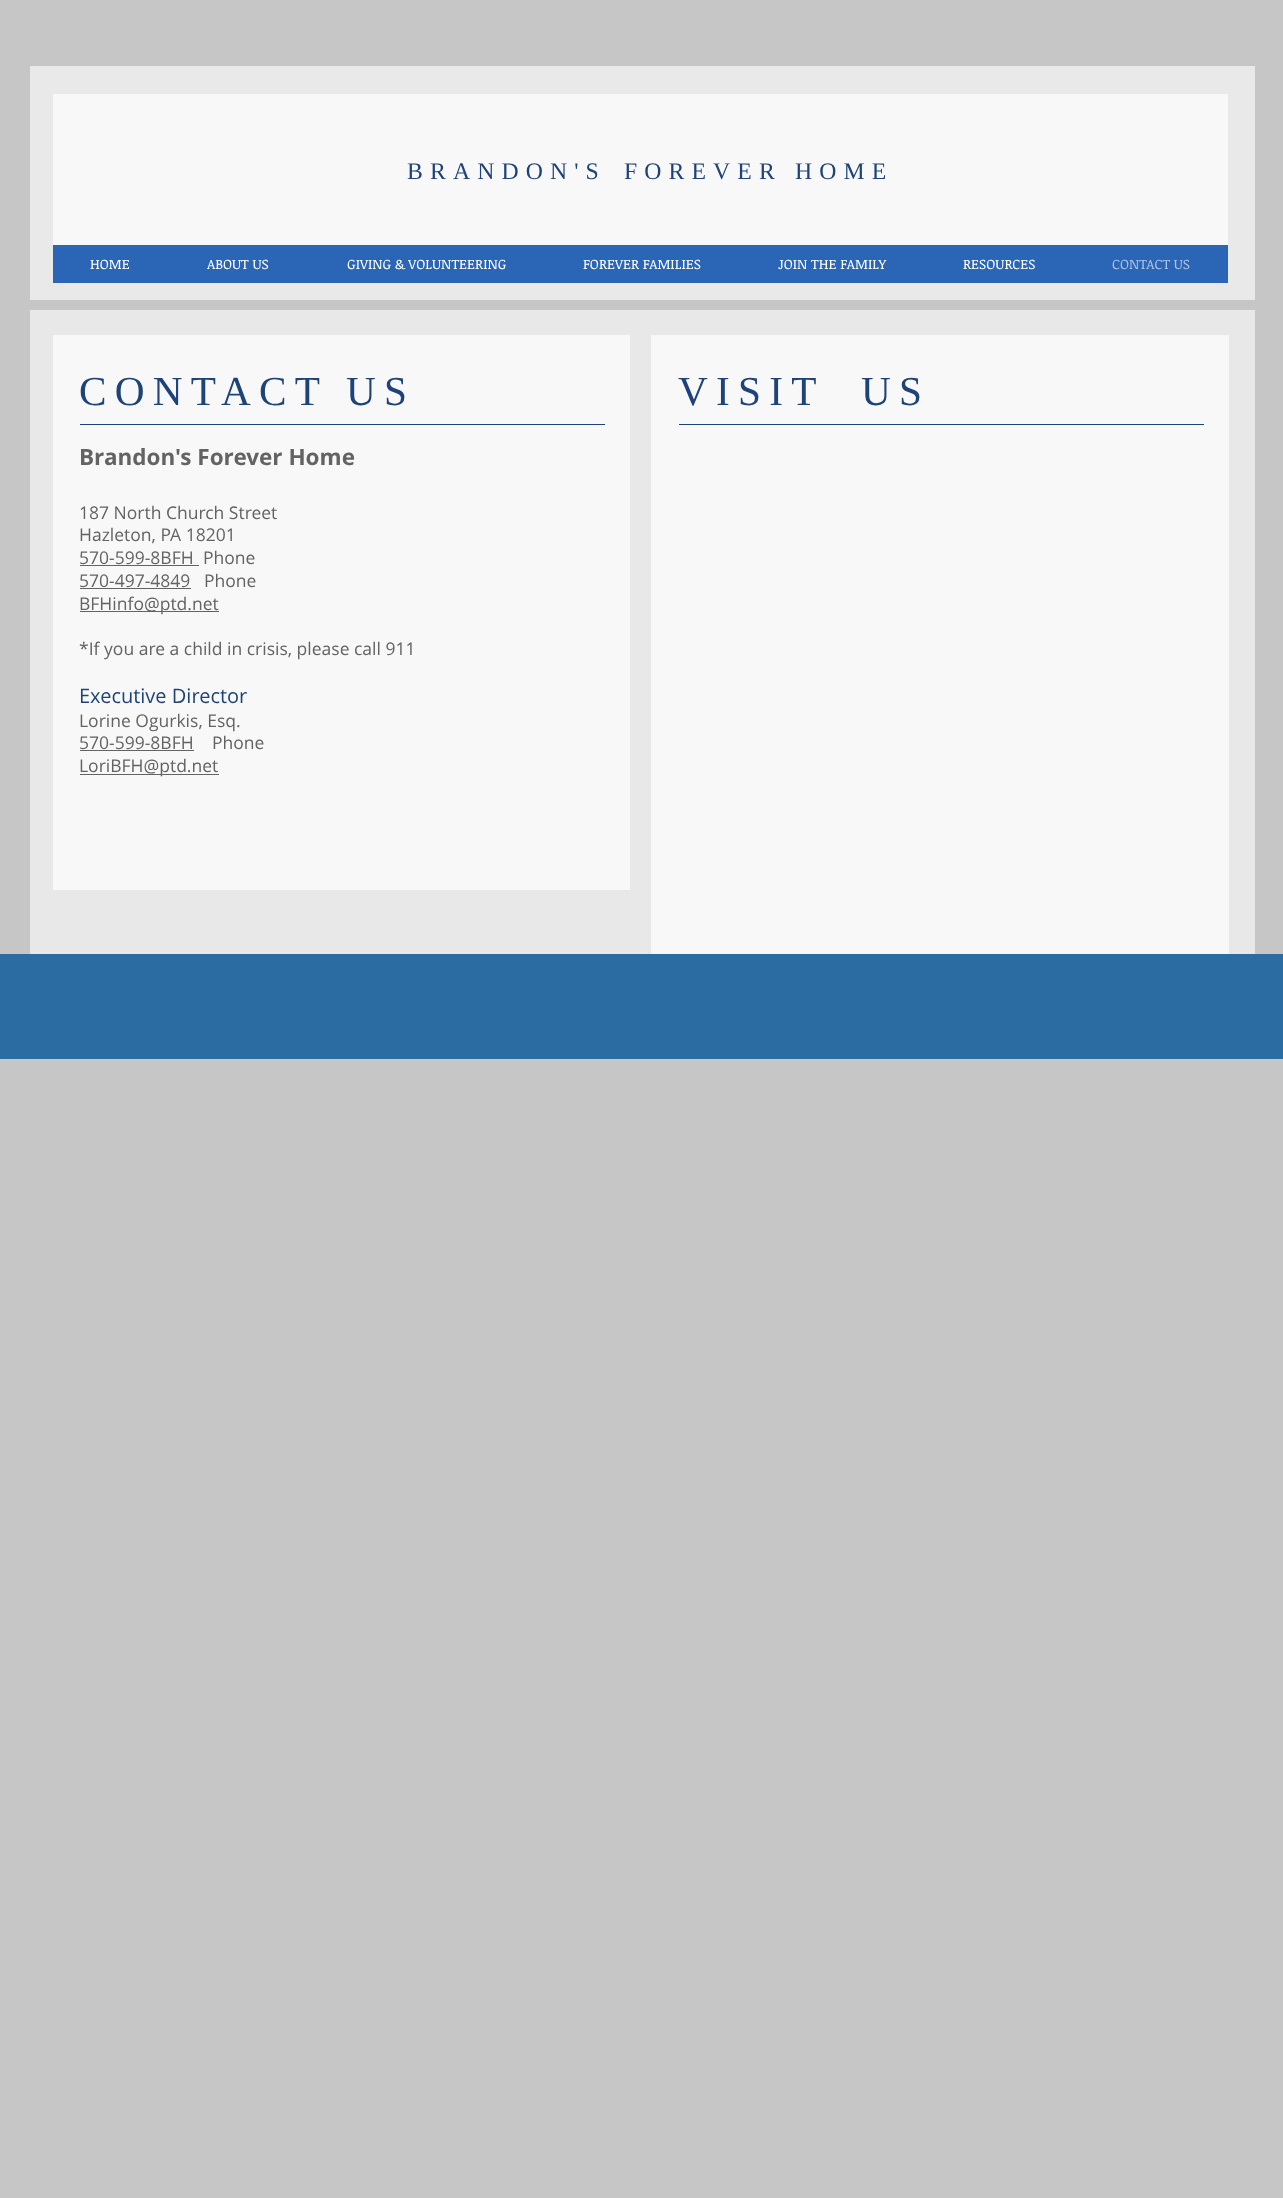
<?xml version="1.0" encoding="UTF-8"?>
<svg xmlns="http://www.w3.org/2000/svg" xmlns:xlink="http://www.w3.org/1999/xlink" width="1283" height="2198">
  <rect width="100%" height="100%" fill="#c6c6c6" />
  <rect x="30" y="66" width="1225" height="234" fill="#e9e9e9" />
  <rect x="53" y="94" width="1175" height="151" fill="#f8f8f8" />
  <rect x="53" y="245" width="1175" height="38" fill="#2b65b5" />
  <rect x="30" y="310" width="1225" height="644" fill="#e8e8e8" />
  <rect x="53" y="335" width="577" height="555" fill="#f8f8f8" />
  <rect x="80" y="424" width="525" height="1" fill="#1d4379" />
  <rect x="80" y="565" width="119" height="1" fill="#636363" />
  <rect x="80" y="588" width="111" height="1" fill="#636363" />
  <rect x="80" y="611" width="139" height="1" fill="#636363" />
  <rect x="80" y="750" width="114" height="1" fill="#636363" />
  <rect x="80" y="774" width="139" height="1" fill="#636363" />
  <rect x="651" y="335" width="578" height="619" fill="#f8f8f8" />
  <rect x="679" y="424" width="525" height="1" fill="#1d4379" />
  <rect y="954" width="1283" height="105" fill="#2b6ca3" />
  <text x="407" y="179" style="font-family: Liberation Serif; font-size: 23.75px; letter-spacing: 7.1px; fill: #1d4379">BRANDON'S</text>
  <text x="624" y="179" style="font-family: Liberation Serif; font-size: 23.75px; letter-spacing: 7.1px; fill: #1d4379">FOREVER HOME</text>
  <text x="90" y="269" style="font-family: Noticia Text; font-size: 13.75px; fill: #ffffff">HOME</text>
  <text x="207" y="269" style="font-family: Noticia Text; font-size: 13.75px; fill: #ffffff">ABOUT US</text>
  <text x="347" y="269" style="font-family: Noticia Text; font-size: 13.75px; fill: #ffffff">GIVING &amp; VOLUNTEERING</text>
  <text x="583" y="269" style="font-family: Noticia Text; font-size: 13.75px; fill: #ffffff">FOREVER FAMILIES</text>
  <text x="778" y="269" style="font-family: Noticia Text; font-size: 13.75px; fill: #ffffff">JOIN THE FAMILY</text>
  <text x="963" y="269" style="font-family: Noticia Text; font-size: 13.75px; fill: #ffffff">RESOURCES</text>
  <text x="1112" y="269" style="font-family: Noticia Text; font-size: 13.75px; fill: #acc4e6">CONTACT US</text>
  <text x="79" y="405" style="font-family: Liberation Serif; font-size: 41.25px; letter-spacing: 8.25px; fill: #1d4379">CONTACT US</text>
  <text x="79" y="465" style="font-family: Open Sans; font-size: 22.5px; font-weight: bold; fill: #636363">Brandon's Forever Home</text>
  <text x="79" y="519" style="font-family: Open Sans; font-size: 17.5px; fill: #636363">187 North Church Street</text>
  <text x="79" y="541" style="font-family: Open Sans; font-size: 17.5px; fill: #636363">Hazleton, PA 18201</text>
  <text x="79" y="564" style="font-family: Open Sans; font-size: 17.5px; fill: #636363">570-599-8BFH</text>
  <text x="203" y="564" style="font-family: Open Sans; font-size: 17.5px; fill: #636363">Phone</text>
  <text x="79" y="587" style="font-family: Open Sans; font-size: 17.5px; fill: #636363">570-497-4849</text>
  <text x="204" y="587" style="font-family: Open Sans; font-size: 17.5px; fill: #636363">Phone</text>
  <text x="79" y="610" style="font-family: Open Sans; font-size: 17.5px; fill: #636363">BFHinfo@ptd.net</text>
  <text x="79" y="655" style="font-family: Open Sans; font-size: 17.5px; fill: #636363">*If you are a child in crisis, please call 911</text>
  <text x="79" y="703" style="font-family: Open Sans; font-size: 20px; fill: #1d4379">Executive Director</text>
  <text x="79" y="727" style="font-family: Open Sans; font-size: 17.5px; fill: #636363">Lorine Ogurkis, Esq.</text>
  <text x="79" y="749" style="font-family: Open Sans; font-size: 17.5px; fill: #636363">570-599-8BFH</text>
  <text x="212" y="749" style="font-family: Open Sans; font-size: 17.5px; fill: #636363">Phone</text>
  <text x="79" y="772" style="font-family: Open Sans; font-size: 17.5px; fill: #636363">LoriBFH@ptd.net</text>
  <text x="678" y="405" style="font-family: Liberation Serif; font-size: 41.25px; letter-spacing: 8.25px; fill: #1d4379" xml:space="preserve">VISIT  US</text>
</svg>
